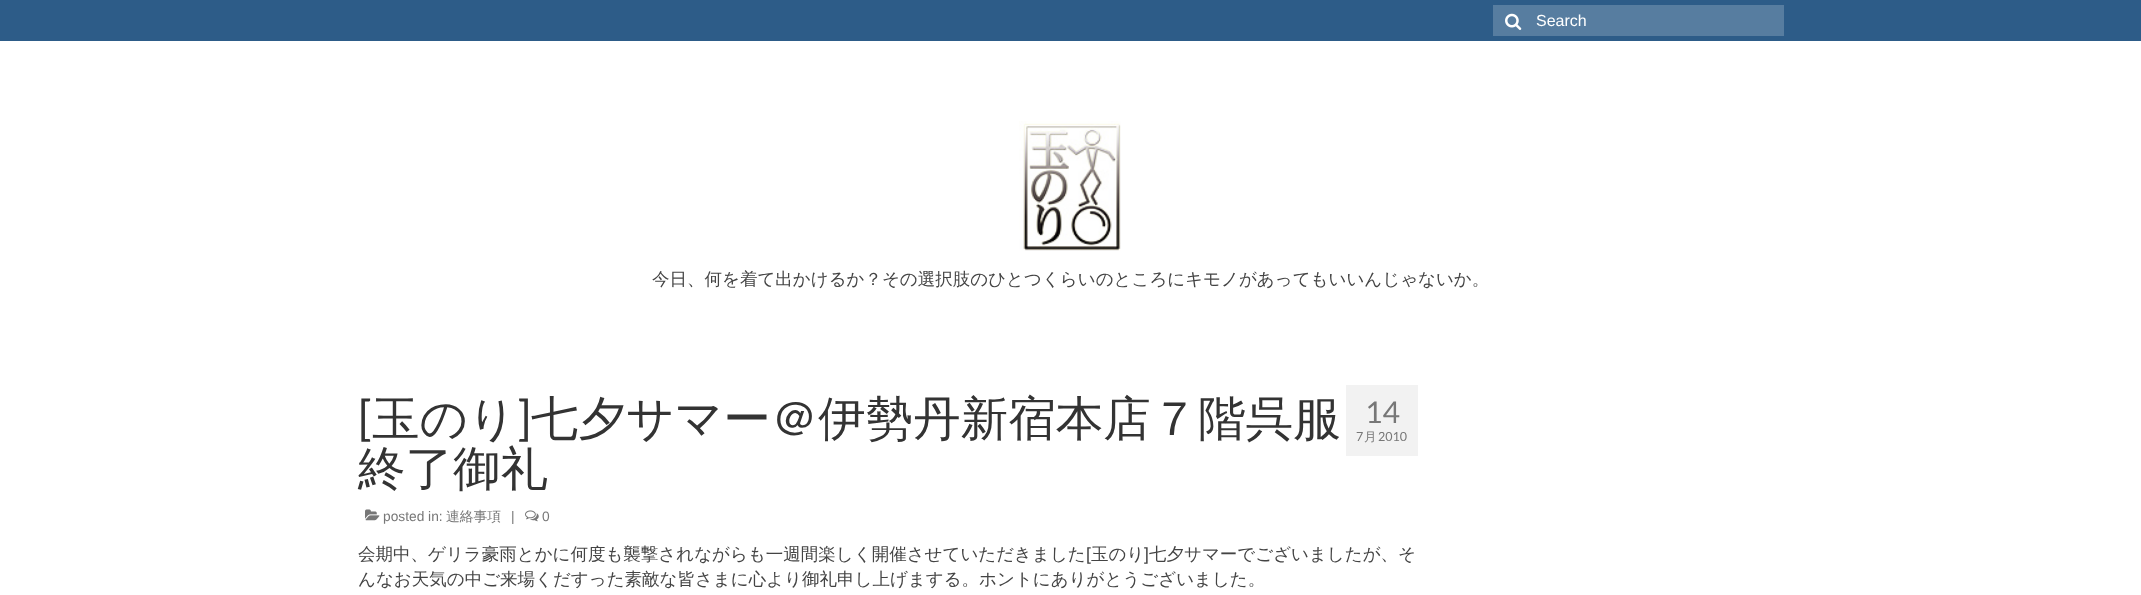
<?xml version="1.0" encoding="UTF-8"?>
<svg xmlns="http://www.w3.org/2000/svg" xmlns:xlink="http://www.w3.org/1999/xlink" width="2141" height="595">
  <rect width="100%" height="100%" fill="#ffffff" />
  <rect width="2141" height="41" fill="#2d5c88" />
  <rect x="1493" y="5" width="291" height="31" fill="#577da0" />
  <image x="1505" y="13" width="17" height="17" xlink:href="image1.png" />
  <image x="1019" y="121" width="102" height="130" xlink:href="image2.png" />
  <image x="365" y="509" width="15" height="12" xlink:href="image3.png" />
  <image x="525" y="510" width="14" height="12" xlink:href="image4.png" />
  <rect x="1346" y="385" width="72" height="71" fill="#f2f2f2" />
  <text x="1536" y="26" style="font-family: Liberation Sans; font-size: 16px; fill: #ffffff">Search</text>
  <text x="652" y="285" style="font-family: WenQuanYi Zen Hei; font-size: 17.5px; font-weight: 500; fill: #444444">今日、何を着て出かけるか？その選択肢のひとつくらいのところにキモノがあってもいいんじゃないか。</text>
  <text x="358" y="435" style="font-family: Lato; font-size: 47.5px; fill: #333333">[</text>
  <text x="372" y="435" style="font-family: WenQuanYi Zen Hei; font-size: 47.5px; font-weight: 500; fill: #333333">玉のり 七夕サマー＠伊勢丹新宿本店７階呉服</text>
  <text x="517" y="435" style="font-family: Lato; font-size: 47.5px; fill: #333333">]</text>
  <text x="358" y="485" style="font-family: WenQuanYi Zen Hei; font-size: 47.5px; font-weight: 500; fill: #333333">終了御礼</text>
  <text x="383" y="521" style="font-family: Liberation Sans; font-size: 13.75px; fill: #777777">posted in:</text>
  <text x="446" y="521" style="font-family: WenQuanYi Zen Hei; font-size: 13.75px; font-weight: 500; fill: #777777">連絡事項</text>
  <text x="511" y="521" style="font-family: Liberation Sans; font-size: 13.75px; fill: #777777">|</text>
  <text x="542" y="521" style="font-family: Liberation Sans; font-size: 13.75px; fill: #777777">0</text>
  <text x="1365" y="423" style="font-family: Lato; font-size: 30px; fill: #777777">14</text>
  <text x="1356" y="441" style="font-family: Lato; font-size: 12.5px; fill: #777777">7</text>
  <text x="1364" y="441" style="font-family: WenQuanYi Zen Hei; font-size: 12.5px; font-weight: 500; fill: #777777">月</text>
  <text x="1378" y="441" style="font-family: Lato; font-size: 12.5px; fill: #777777">2010</text>
  <text x="358" y="560" style="font-family: WenQuanYi Zen Hei; font-size: 17.5px; font-weight: 500; fill: #444444">会期中、ゲリラ豪雨とかに何度も襲撃されながらも一週間楽しく開催させていただきました</text>
  <text x="1086" y="560" style="font-family: Liberation Sans; font-size: 17.5px; fill: #444444">[</text>
  <text x="1091" y="560" style="font-family: WenQuanYi Zen Hei; font-size: 17.5px; font-weight: 500; fill: #444444">玉のり</text>
  <text x="1144" y="560" style="font-family: Liberation Sans; font-size: 17.5px; fill: #444444">]</text>
  <text x="1149" y="560" style="font-family: WenQuanYi Zen Hei; font-size: 17.5px; font-weight: 500; fill: #444444">七夕サマーでございましたが、そ</text>
  <text x="358" y="585" style="font-family: WenQuanYi Zen Hei; font-size: 17.5px; font-weight: 500; fill: #444444">んなお天気の中ご来場くだすった素敵な皆さまに心より御礼申し上げまする。ホントにありがとうございました。</text>
</svg>
